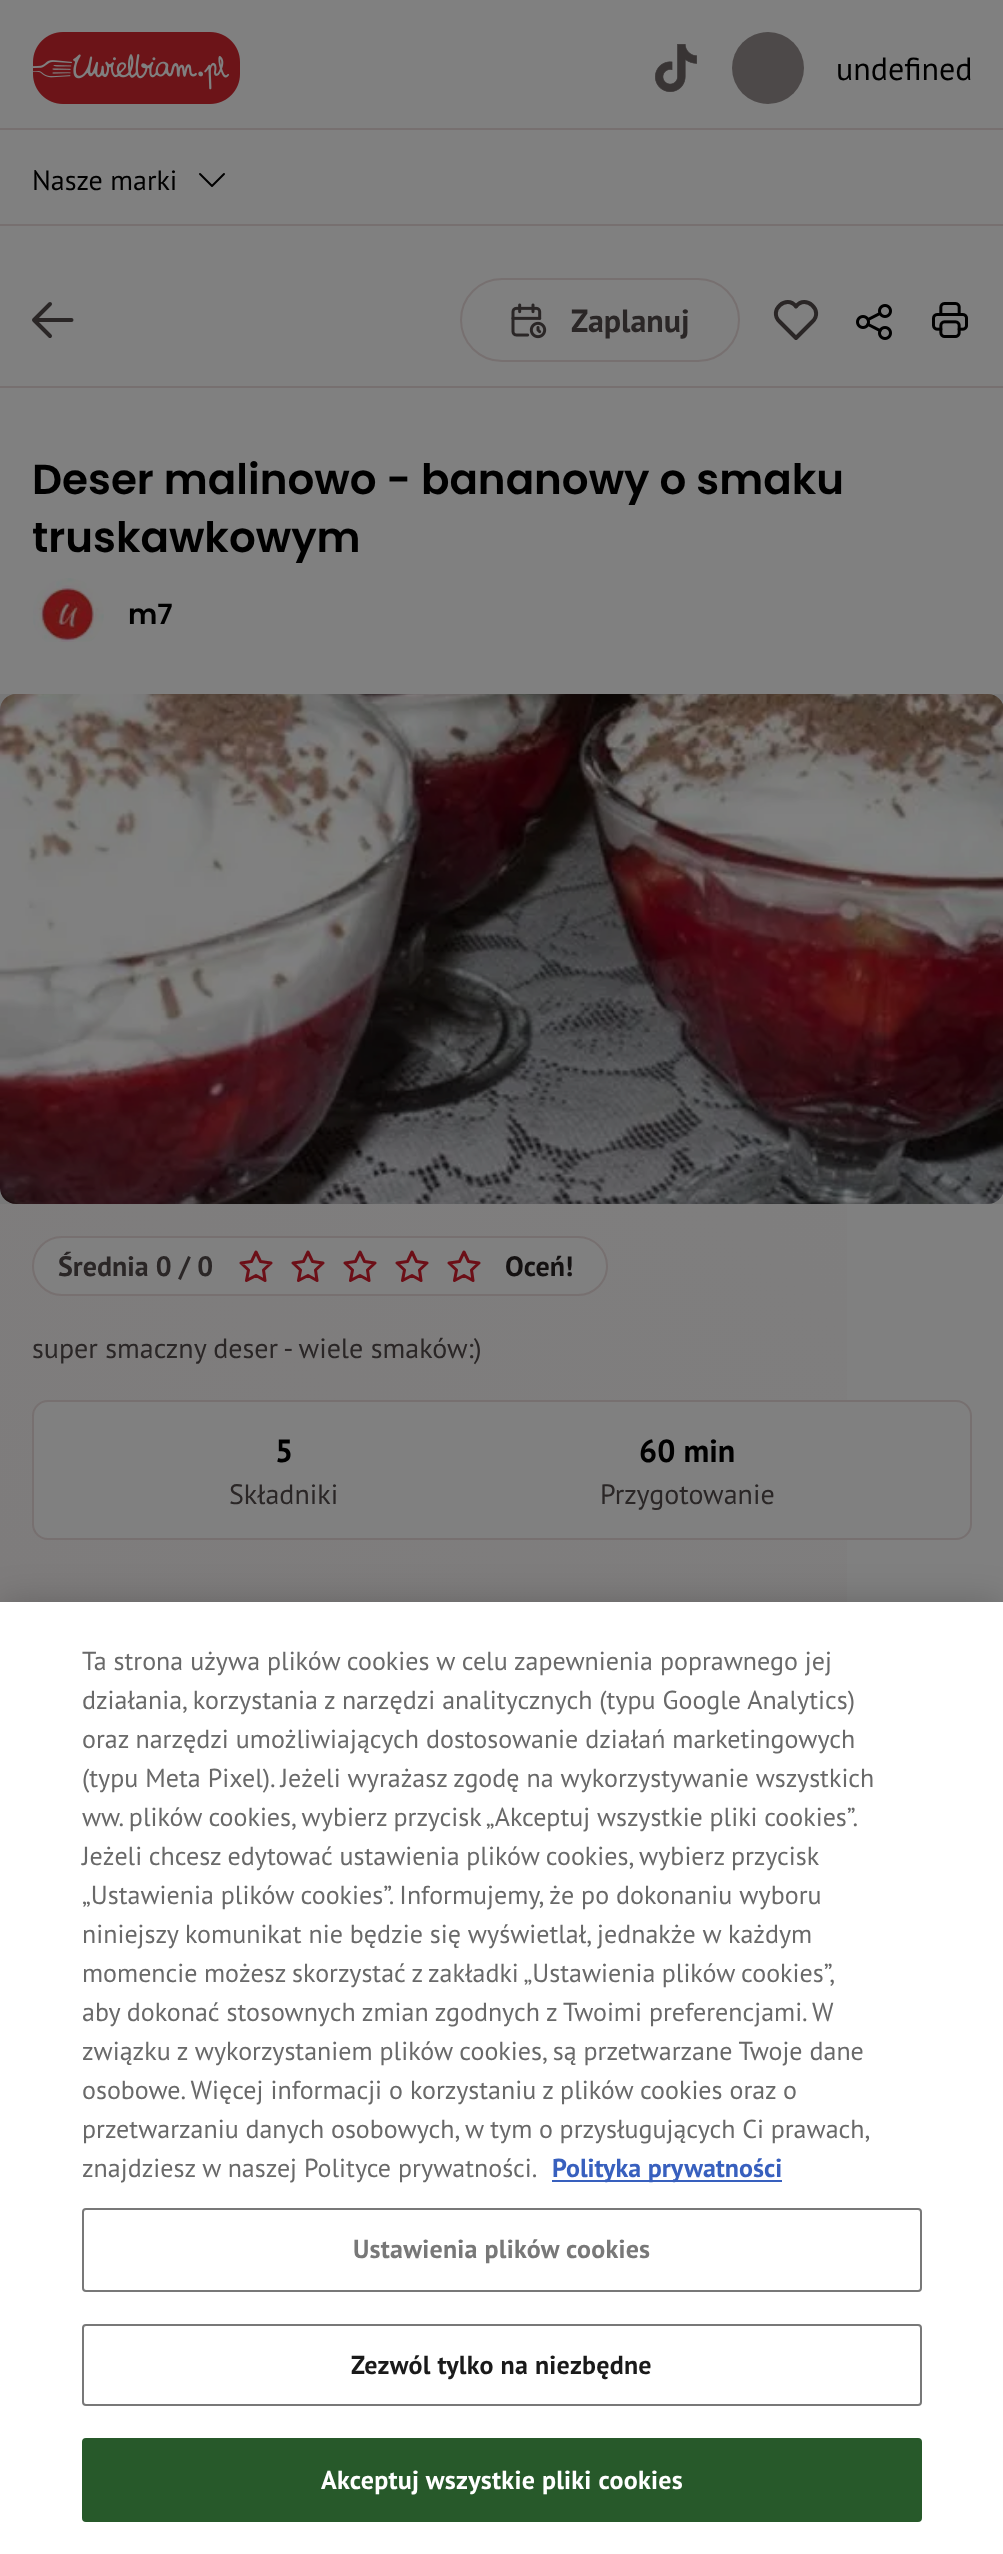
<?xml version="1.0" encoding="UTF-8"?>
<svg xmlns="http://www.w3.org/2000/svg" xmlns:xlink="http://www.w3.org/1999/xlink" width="1003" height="2554">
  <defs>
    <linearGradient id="g1" gradientUnits="userSpaceOnUse" x1="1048" y1="430" x2="-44" y2="1560"><stop offset="0" stop-color="#808080" /><stop offset="1" stop-color="#7e7c7c" /></linearGradient>
  </defs>
  <rect width="100%" height="100%" fill="#808080" />
  <rect y="224" width="1003" height="2" fill="#777070" />
  <image x="33" y="32" width="207" height="72" xlink:href="image1.png" />
  <image x="655" y="44" width="42" height="48" xlink:href="image2.png" />
  <circle cx="768" cy="68" r="36" fill="#4d4949" />
  <rect y="128" width="1003" height="2" fill="#777070" />
  <path d="M 200 174 l 12 12 l 12 -12" fill="none" stroke="#000000" stroke-width="2" stroke-linecap="round" stroke-linejoin="round" />
  <path d="M 34 320 h 37.5 m -37.5 0 l 16 16 m -16 -16 l 16 -16" fill="none" stroke="#2a2626" stroke-width="4" stroke-linecap="round" stroke-linejoin="round" />
  <rect x="461" y="279" width="278" height="82" rx="41" fill="none" stroke="#777070" stroke-width="2" />
  <image x="511" y="303" width="36" height="36" xlink:href="image3.png" />
  <path d="M 812.5 321.5 l -16.5 16.5 l -16.5 -16.5 m 0 0 c -11.5 -11 7 -27.5 16.5 -15 c 9.5 -12.5 28 4 16.5 15" fill="none" stroke="#2a2626" stroke-width="4" stroke-linecap="round" stroke-linejoin="round" />
  <image x="856" y="304" width="36" height="36" xlink:href="image4.png" />
  <image x="932" y="302" width="36" height="36" xlink:href="image5.png" />
  <rect y="784" width="847" height="818" fill="url(#g1)" />
  <rect y="386" width="1003" height="2" fill="#777070" />
  <image x="33" y="578" width="71" height="64" xlink:href="image6.png" />
  <rect y="694" width="1003" height="510" fill="#787878" />
  <image x="0" y="694" width="1003" height="510" xlink:href="image7.png" />
  <rect x="33" y="1237" width="574" height="58" rx="29" fill="#808080" stroke="#777070" stroke-width="2" />
  <path d="M 256 1275.5 l -9.5 5 l 2 -10.5 l -7.5 -7 l 10.5 -1.5 l 4.5 -9.5 l 4.5 9.5 l 10.5 1.5 l -7.5 7 l 1.5 10.5 z" fill="none" stroke="#6c0f17" stroke-width="3" stroke-linecap="round" stroke-linejoin="round" />
  <path d="M 308 1275.5 l -9.5 5 l 2 -10.5 l -7.5 -7 l 10.5 -1.5 l 4.5 -9.5 l 4.5 9.5 l 10.5 1.5 l -7.5 7 l 1.5 10.5 z" fill="none" stroke="#6c0f17" stroke-width="3" stroke-linecap="round" stroke-linejoin="round" />
  <path d="M 360 1275.5 l -9.5 5 l 2 -10.5 l -7.5 -7 l 10.5 -1.5 l 4.5 -9.5 l 4.5 9.5 l 10.5 1.5 l -7.5 7 l 1.5 10.5 z" fill="none" stroke="#6c0f17" stroke-width="3" stroke-linecap="round" stroke-linejoin="round" />
  <path d="M 412 1275.5 l -9.5 5 l 2 -10.5 l -7.5 -7 l 10.5 -1.5 l 4.5 -9.5 l 4.5 9.5 l 10.5 1.5 l -7.5 7 l 1.5 10.5 z" fill="none" stroke="#6c0f17" stroke-width="3" stroke-linecap="round" stroke-linejoin="round" />
  <path d="M 464 1275.5 l -9.5 5 l 2 -10.5 l -7.5 -7 l 10.5 -1.5 l 4.5 -9.5 l 4.5 9.5 l 10.5 1.5 l -7.5 7 l 1.5 10.5 z" fill="none" stroke="#6c0f17" stroke-width="3" stroke-linecap="round" stroke-linejoin="round" />
  <rect x="33" y="1401" width="938" height="138" rx="15" fill="#808080" stroke="#777070" stroke-width="2" />
  <rect y="1602" width="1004" height="952" fill="#000000" fill-opacity="0.2" filter="blur(18px)" />
  <rect y="1602" width="1003" height="952" fill="#ffffff" />
  <rect x="552" y="2180" width="230" height="2" fill="#3860be" />
  <rect x="83" y="2209" width="838" height="82" rx="3" fill="none" stroke="#787878" stroke-width="2" />
  <rect x="83" y="2325" width="838" height="80" rx="3" fill="none" stroke="#787878" stroke-width="2" />
  <rect x="83" y="2439" width="838" height="82" rx="3" fill="#27592a" stroke="#27592a" stroke-width="2" />
  <text x="836" y="80" style="font-family: PT Sans; font-size: 32px; fill: #000000">undefined</text>
  <text x="32" y="190" style="font-family: PT Sans; font-size: 28px; fill: #000000">Nasze marki</text>
  <text x="571" y="332" style="font-family: PT Sans; font-size: 32px; font-weight: bold; fill: #2a2626">Zaplanuj</text>
  <text x="32" y="494" style="font-family: Poppins; font-size: 42px; font-weight: 600; fill: #000000">Deser malinowo - bananowy o smaku</text>
  <text x="32" y="552" style="font-family: Poppins; font-size: 42px; font-weight: 600; fill: #000000">truskawkowym</text>
  <text x="128" y="624" style="font-family: Poppins; font-size: 28px; font-weight: 600; fill: #000000">m7</text>
  <text x="58" y="1276" style="font-family: PT Sans; font-size: 28px; font-weight: bold; fill: #2a2626">Średnia 0 / 0</text>
  <text x="505" y="1276" style="font-family: PT Sans; font-size: 28px; font-weight: bold; fill: #141111">Oceń!</text>
  <text x="32" y="1358" style="font-family: PT Sans; font-size: 28px; fill: #2a2626">super smaczny deser - wiele smaków:)</text>
  <text x="275" y="1462" style="font-family: PT Sans; font-size: 32px; font-weight: bold; fill: #000000">5</text>
  <text x="229" y="1504" style="font-family: PT Sans; font-size: 28px; fill: #2a2626">Składniki</text>
  <text x="639" y="1462" style="font-family: PT Sans; font-size: 32px; font-weight: bold; fill: #000000">60 min</text>
  <text x="600" y="1504" style="font-family: PT Sans; font-size: 28px; fill: #2a2626">Przygotowanie</text>
  <text x="82" y="1670" style="font-family: PT Sans; font-size: 26px; fill: #696969">Ta strona używa plików cookies w celu zapewnienia poprawnego jej</text>
  <text x="82" y="1709" style="font-family: PT Sans; font-size: 26px; fill: #696969">działania, korzystania z narzędzi analitycznych (typu Google Analytics)</text>
  <text x="82" y="1748" style="font-family: PT Sans; font-size: 26px; fill: #696969">oraz narzędzi umożliwiających dostosowanie działań marketingowych</text>
  <text x="82" y="1787" style="font-family: PT Sans; font-size: 26px; fill: #696969">(typu Meta Pixel). Jeżeli wyrażasz zgodę na wykorzystywanie wszystkich</text>
  <text x="82" y="1826" word-spacing="-0.25" style="font-family: PT Sans; font-size: 26px; fill: #696969">ww. plików cookies, wybierz przycisk „Akceptuj wszystkie pliki cookies”.</text>
  <text x="82" y="1865" word-spacing="-0.25" style="font-family: PT Sans; font-size: 26px; fill: #696969">Jeżeli chcesz edytować ustawienia plików cookies, wybierz przycisk</text>
  <text x="82" y="1904" style="font-family: PT Sans; font-size: 26px; fill: #696969">„Ustawienia plików cookies”. Informujemy, że po dokonaniu wyboru</text>
  <text x="82" y="1943" style="font-family: PT Sans; font-size: 26px; fill: #696969">niniejszy komunikat nie będzie się wyświetlał, jednakże w każdym</text>
  <text x="82" y="1982" word-spacing="-0.5" style="font-family: PT Sans; font-size: 26px; fill: #696969">momencie możesz skorzystać z zakładki „Ustawienia plików cookies”,</text>
  <text x="82" y="2021" style="font-family: PT Sans; font-size: 26px; fill: #696969">aby dokonać stosownych zmian zgodnych z Twoimi preferencjami. W</text>
  <text x="82" y="2060" style="font-family: PT Sans; font-size: 26px; fill: #696969">związku z wykorzystaniem plików cookies, są przetwarzane Twoje dane</text>
  <text x="82" y="2099" style="font-family: PT Sans; font-size: 26px; fill: #696969">osobowe. Więcej informacji o korzystaniu z plików cookies oraz o</text>
  <text x="82" y="2138" word-spacing="-0.25" style="font-family: PT Sans; font-size: 26px; fill: #696969">przetwarzaniu danych osobowych, w tym o przysługujących Ci prawach,</text>
  <text x="82" y="2177" style="font-family: PT Sans; font-size: 26px; fill: #696969">znajdziesz w naszej Polityce prywatności.</text>
  <text x="552" y="2177" style="font-family: PT Sans; font-size: 26px; font-weight: bold; fill: #3860be">Polityka prywatności</text>
  <text x="353" y="2258" style="font-family: PT Sans; font-size: 26px; font-weight: bold; letter-spacing: 0.25px; fill: #787878">Ustawienia plików cookies</text>
  <text x="351" y="2374" style="font-family: PT Sans; font-size: 26px; font-weight: bold; letter-spacing: 0.25px; fill: #1a1a1a">Zezwól tylko na niezbędne</text>
  <text x="321" y="2489" style="font-family: PT Sans; font-size: 26px; font-weight: bold; letter-spacing: 0.25px; fill: #ffffff">Akceptuj wszystkie pliki cookies</text>
</svg>
